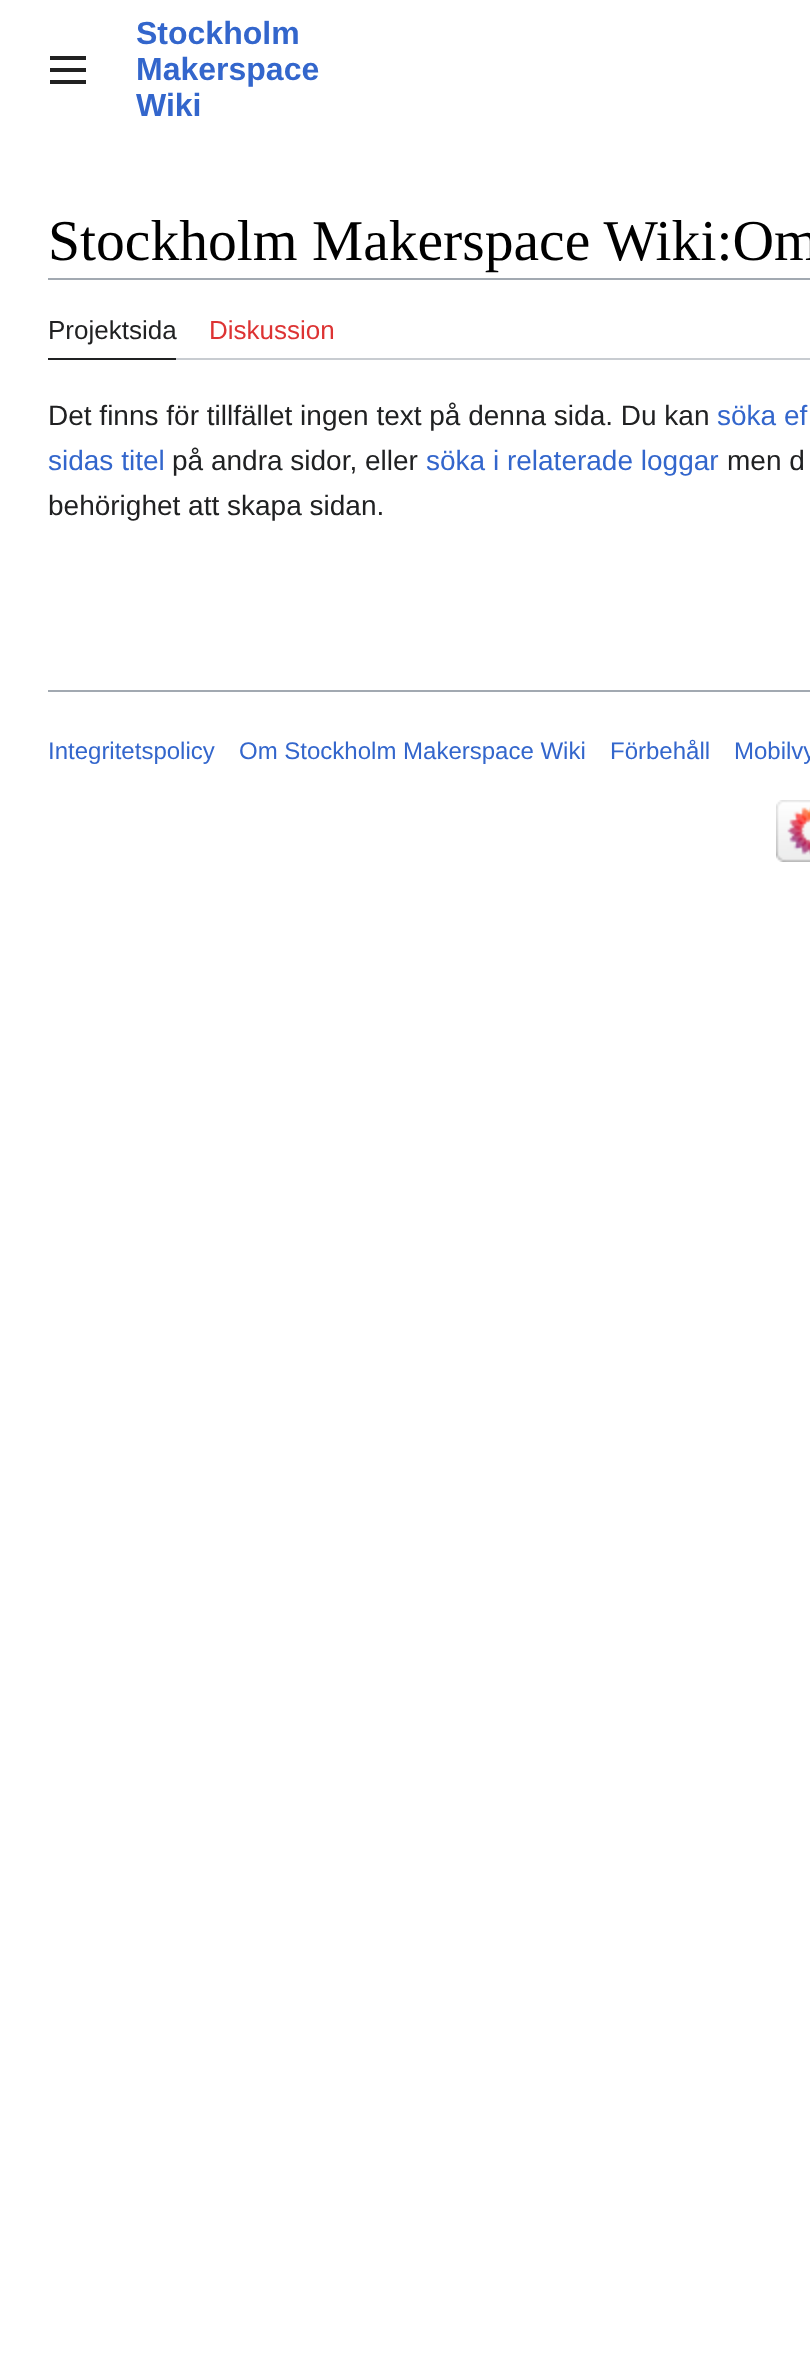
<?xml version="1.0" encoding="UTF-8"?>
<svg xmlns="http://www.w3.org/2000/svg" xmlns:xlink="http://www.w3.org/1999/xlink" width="810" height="2371">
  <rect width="100%" height="100%" fill="#ffffff" />
  <path d="M 50 56 v 4 h 36 v -4 z m 0 16 h 36 v -4 h -36 z m 0 12 h 36 v -4 h -36 z" fill="#212121" />
  <rect x="48" y="278" width="762" height="2" fill="#a2a9b1" />
  <rect x="176" y="358" width="634" height="2" fill="#c8ccd1" />
  <rect x="48" y="358" width="128" height="2" fill="#202122" />
  <rect x="48" y="690" width="762" height="2" fill="#a2a9b1" />
  <image x="776" y="800" width="34" height="62" xlink:href="image1.png" />
  <text x="136" y="44" style="font-family: Liberation Sans; font-size: 32px; font-weight: bold; fill: #3366cc">Stockholm</text>
  <text x="136" y="80" style="font-family: Liberation Sans; font-size: 32px; font-weight: bold; fill: #3366cc">Makerspace</text>
  <text x="136" y="116" style="font-family: Liberation Sans; font-size: 32px; font-weight: bold; fill: #3366cc">Wiki</text>
  <text x="48" y="260" style="font-family: Liberation Serif; font-size: 57.6px; fill: #000000">Stockholm Makerspace Wiki:Om</text>
  <text x="48" y="339" style="font-family: Liberation Sans; font-size: 26px; fill: #202122">Projektsida</text>
  <text x="209" y="339" style="font-family: Liberation Sans; font-size: 26px; fill: #dd3333">Diskussion</text>
  <text x="48" y="425" style="font-family: Liberation Sans; font-size: 28px; fill: #202122">Det finns för tillfället ingen text på denna sida. Du kan</text>
  <text x="717" y="425" style="font-family: Liberation Sans; font-size: 28px; fill: #3366cc">söka ef</text>
  <text x="48" y="470" style="font-family: Liberation Sans; font-size: 28px; fill: #3366cc">sidas titel</text>
  <text x="172" y="470" style="font-family: Liberation Sans; font-size: 28px; fill: #202122">på andra sidor, eller</text>
  <text x="426" y="470" style="font-family: Liberation Sans; font-size: 28px; fill: #3366cc">söka i relaterade loggar</text>
  <text x="727" y="470" style="font-family: Liberation Sans; font-size: 28px; fill: #202122">men d</text>
  <text x="48" y="515" style="font-family: Liberation Sans; font-size: 28px; fill: #202122">behörighet att skapa sidan.</text>
  <text x="48" y="759" style="font-family: Liberation Sans; font-size: 24px; fill: #3366cc">Integritetspolicy</text>
  <text x="239" y="759" style="font-family: Liberation Sans; font-size: 24px; fill: #3366cc">Om Stockholm Makerspace Wiki</text>
  <text x="610" y="759" style="font-family: Liberation Sans; font-size: 24px; fill: #3366cc">Förbehåll</text>
  <text x="734" y="759" style="font-family: Liberation Sans; font-size: 24px; fill: #3366cc">Mobilvy</text>
</svg>
